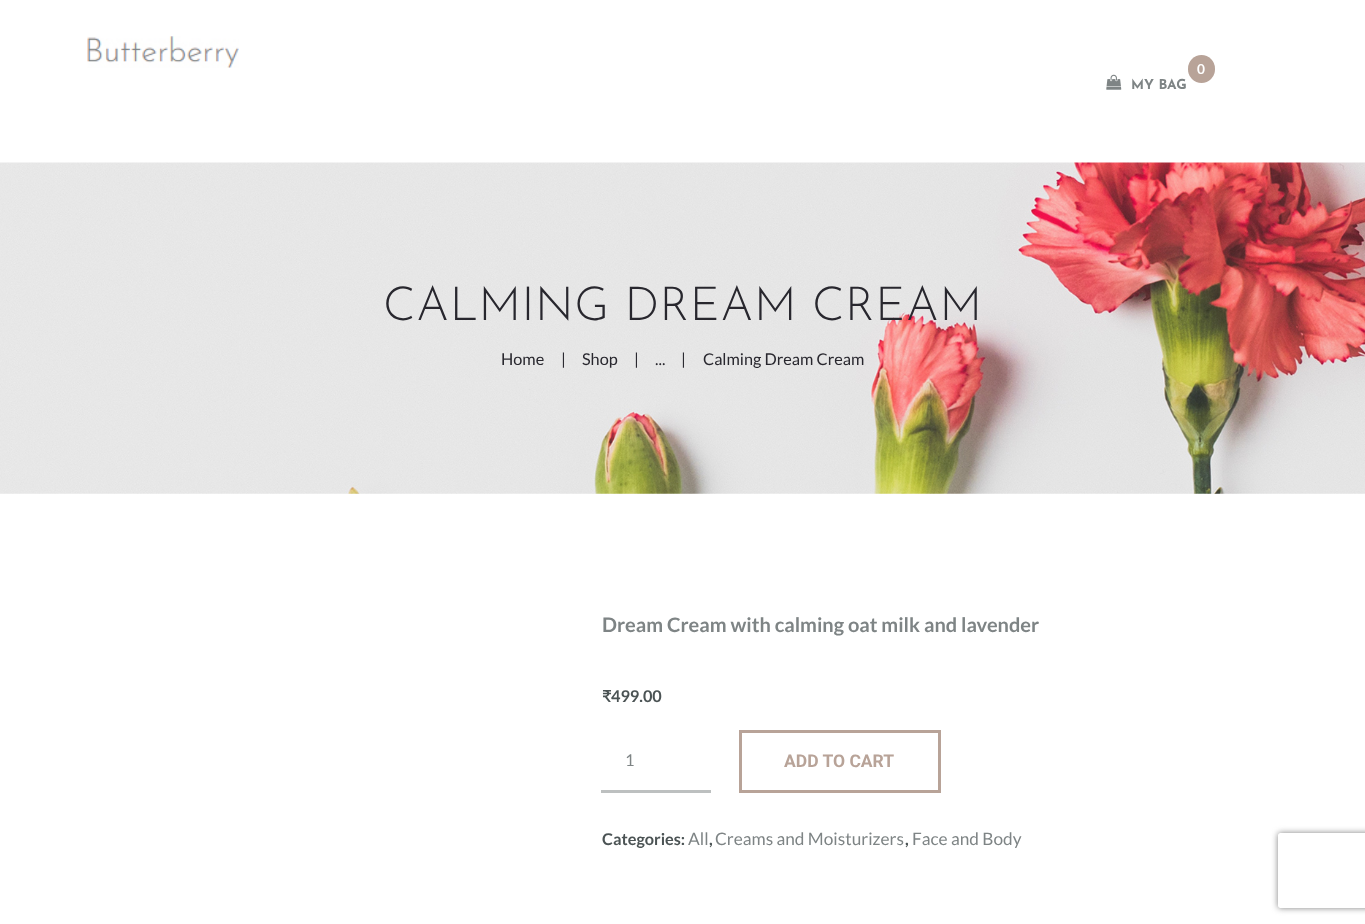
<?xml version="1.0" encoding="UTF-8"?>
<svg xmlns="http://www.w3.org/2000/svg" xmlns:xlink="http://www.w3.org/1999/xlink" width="1365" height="924">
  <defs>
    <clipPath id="clip1"><path d="M 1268 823 h 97 v 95 h -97 z m 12.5 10 h 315 c 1.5 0 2.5 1 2.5 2.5 v 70 c 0 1.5 -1 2.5 -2.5 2.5 h -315 c -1.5 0 -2.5 -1 -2.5 -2.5 v -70 c 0 -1.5 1 -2.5 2.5 -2.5 z" clip-rule="evenodd" /></clipPath>
  </defs>
  <rect width="100%" height="100%" fill="#ffffff" />
  <image x="87" y="36" width="152" height="32" xlink:href="image1.png" />
  <rect x="1188" y="55" width="27" height="28" rx="13.5" fill="#b8a398" />
  <image x="1106" y="74" width="16" height="16" xlink:href="image2.png" />
  <image x="0" y="162" width="1365" height="332" xlink:href="image3.png" />
  <rect x="601" y="790" width="110" height="3" fill="#bdc0c0" />
  <rect x="740.5" y="731.5" width="199" height="60" fill="none" stroke="#b8a398" stroke-width="3" />
  <g clip-path="url(#clip1)">
    <rect x="1278" y="833" width="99" height="75" rx="2.5" fill="#808080" filter="blur(3px)" />
  </g>
  <text x="1197" y="74" style="font-family: Lato; font-size: 13.75px; font-weight: bold; fill: #ffffff">0</text>
  <text x="1131" y="89" style="font-family: Josefin Sans; font-size: 13.75px; font-weight: bold; fill: #7e8485">MY BAG</text>
  <text x="383" y="320" style="font-family: Josefin Sans; font-size: 47px; font-weight: 300; letter-spacing: 0.5px; fill: #28272e">CALMING DREAM CREAM</text>
  <text x="501" y="365" style="font-family: Lato; font-size: 16.25px; fill: #28272e">Home</text>
  <text x="561" y="365" style="font-family: Lato; font-size: 16.25px; fill: #28272e">|</text>
  <text x="582" y="365" style="font-family: Lato; font-size: 16.25px; fill: #28272e">Shop</text>
  <text x="634" y="365" style="font-family: Lato; font-size: 16.25px; fill: #28272e">|</text>
  <text x="655" y="365" style="font-family: Lato; font-size: 16.25px; fill: #28272e">...</text>
  <text x="681" y="365" style="font-family: Lato; font-size: 16.25px; fill: #28272e">|</text>
  <text x="703" y="365" style="font-family: Lato; font-size: 16.25px; fill: #28272e">Calming Dream Cream</text>
  <text x="602" y="632" style="font-family: Lato; font-size: 20px; font-weight: bold; fill: #7e8485">Dream Cream with calming oat milk and lavender</text>
  <text x="602" y="702" style="font-family: 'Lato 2'; font-size: 16.25px; font-weight: bold; fill: #4b5354">₹</text>
  <text x="611" y="702" style="font-family: Lato; font-size: 16.25px; font-weight: bold; fill: #4b5354">499.00</text>
  <text x="625" y="766" style="font-family: Lato; font-size: 16.25px; fill: #7e8485">1</text>
  <text x="784" y="767" style="font-family: Roboto; font-size: 17.5px; font-weight: bold; fill: #b8a398">ADD TO CART</text>
  <text x="602" y="845" style="font-family: Lato; font-size: 16.25px; font-weight: bold; fill: #4b5354">Categories:</text>
  <text x="688" y="845" style="font-family: Lato; font-size: 17.25px; fill: #7e8485">All</text>
  <text x="709" y="845" style="font-family: Lato; font-size: 16.25px; font-weight: bold; fill: #4b5354">,</text>
  <text x="715" y="845" style="font-family: Lato; font-size: 17.25px; fill: #7e8485">Creams and Moisturizers</text>
  <text x="905" y="845" style="font-family: Lato; font-size: 16.25px; font-weight: bold; fill: #4b5354">,</text>
  <text x="912" y="845" style="font-family: Lato; font-size: 17.25px; fill: #7e8485">Face and Body</text>
</svg>
